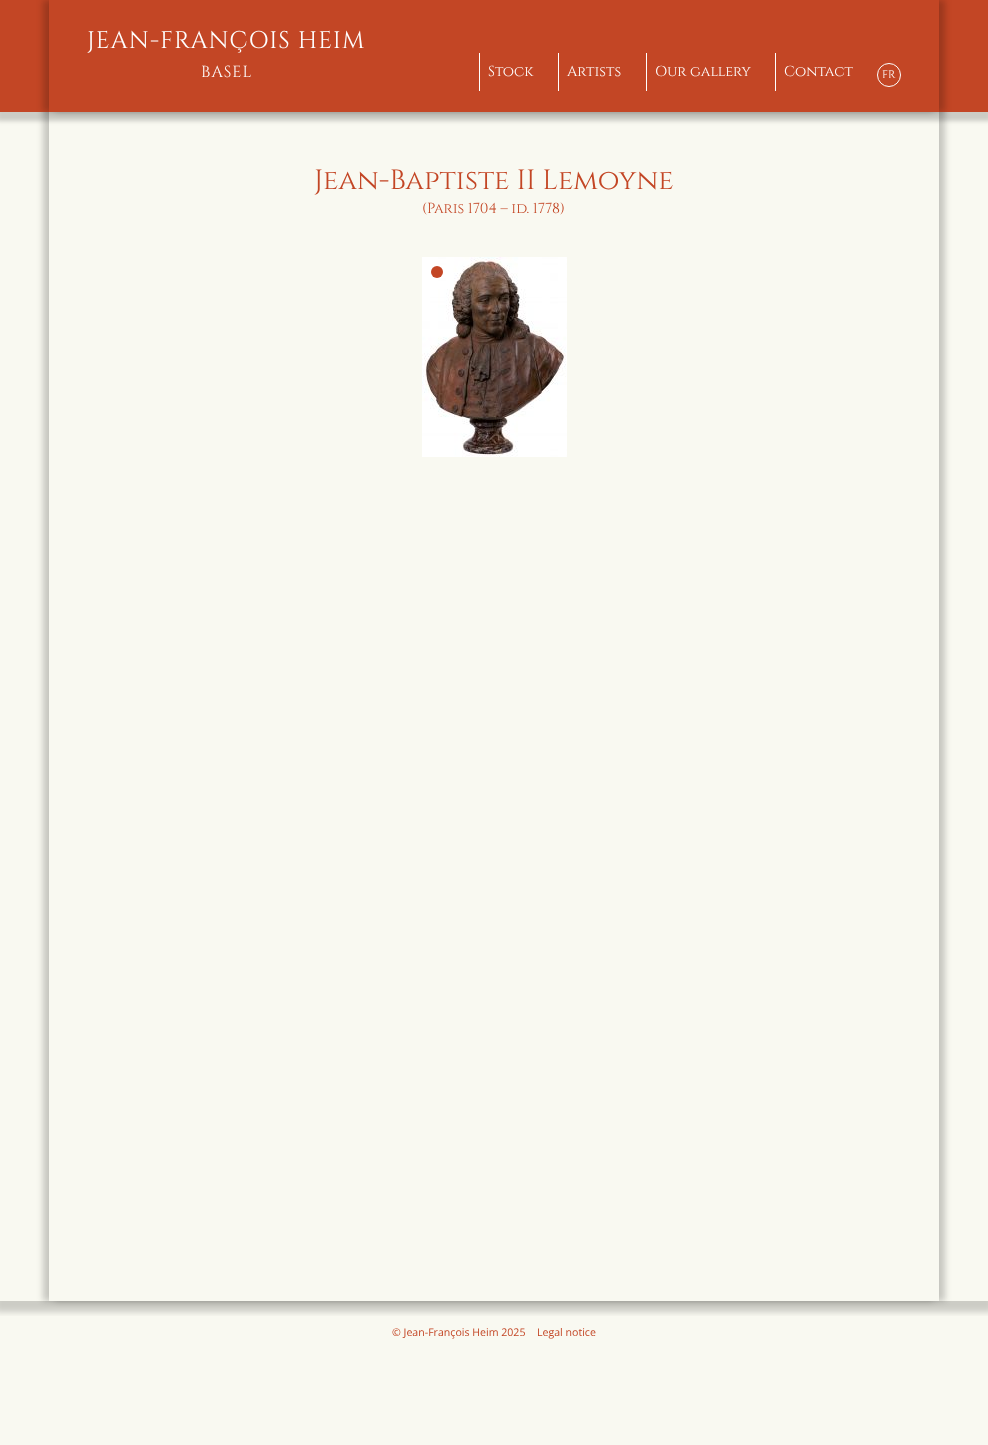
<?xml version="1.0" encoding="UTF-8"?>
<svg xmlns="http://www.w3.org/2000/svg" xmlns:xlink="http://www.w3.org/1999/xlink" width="988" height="1445">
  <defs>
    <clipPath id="clip1"><rect x="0" y="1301" width="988" height="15" /></clipPath>
    <clipPath id="clip2"><path d="M 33 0 h 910 v 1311 h -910 z m 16 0 h 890 v 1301 h -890 z" clip-rule="evenodd" /></clipPath>
    <clipPath id="clip3"><path d="M 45 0 h 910 v 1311 h -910 z m 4 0 h 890 v 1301 h -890 z" clip-rule="evenodd" /></clipPath>
    <clipPath id="clip4"><path d="M 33 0 h 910 v 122 h -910 z m 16 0 h 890 v 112 h -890 z" clip-rule="evenodd" /></clipPath>
    <clipPath id="clip5"><path d="M 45 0 h 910 v 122 h -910 z m 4 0 h 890 v 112 h -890 z" clip-rule="evenodd" /></clipPath>
  </defs>
  <rect width="100%" height="100%" fill="#f9f9f1" />
  <rect x="-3" y="3" width="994" height="118" fill="#000000" fill-opacity="0.18" filter="blur(2px)" />
  <g clip-path="url(#clip1)">
    <rect x="-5" y="1" width="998" height="1311" fill="#000000" fill-opacity="0.18" filter="blur(3px)" />
  </g>
  <g clip-path="url(#clip2)">
    <rect x="43" width="890" height="1301" fill="#000000" fill-opacity="0.2" filter="blur(3px)" />
  </g>
  <g clip-path="url(#clip3)">
    <rect x="55" width="890" height="1301" fill="#000000" fill-opacity="0.2" filter="blur(3px)" />
  </g>
  <rect width="988" height="112" fill="#c34625" />
  <g clip-path="url(#clip4)">
    <rect x="43" width="890" height="112" fill="#000000" fill-opacity="0.2" filter="blur(3px)" />
  </g>
  <g clip-path="url(#clip5)">
    <rect x="55" width="890" height="112" fill="#000000" fill-opacity="0.2" filter="blur(3px)" />
  </g>
  <rect x="479" y="53" width="1" height="38" fill="#ffffff" />
  <rect x="558" y="53" width="1" height="38" fill="#ffffff" />
  <rect x="646" y="53" width="1" height="38" fill="#ffffff" />
  <rect x="775" y="53" width="1" height="38" fill="#ffffff" />
  <circle cx="889" cy="75" r="11.5" fill="none" stroke="#ffffff" />
  <image x="422" y="257" width="145" height="200" xlink:href="image1.png" />
  <circle cx="437" cy="272" r="6" fill="#c34625" />
  <text x="87" y="48" style="font-family: Cinzel; font-size: 24px; letter-spacing: 1px; fill: #ffffff">JEAN-FRANÇOIS HEIM</text>
  <text x="201" y="77" style="font-family: Cinzel; font-size: 16px; letter-spacing: 1px; fill: #ffffff">BASEL</text>
  <text x="488" y="76" style="font-family: Cinzel; font-size: 14.5px; fill: #ffffff">Stock</text>
  <text x="567" y="76" style="font-family: Cinzel; font-size: 14.5px; fill: #ffffff">Artists</text>
  <text x="655" y="76" style="font-family: Cinzel; font-size: 14.5px; fill: #ffffff">Our gallery</text>
  <text x="784" y="76" style="font-family: Cinzel; font-size: 14.5px; fill: #ffffff">Contact</text>
  <text x="882" y="78" style="font-family: Cinzel; font-size: 11px; fill: #ffffff">FR</text>
  <text x="314" y="189" style="font-family: Cinzel; font-size: 28px; fill: #c34625">Jean-Baptiste II Lemoyne</text>
  <text x="422" y="213" style="font-family: Cinzel; font-size: 14.5px; fill: #c34625">(Paris 1704 – id. 1778)</text>
  <text x="392" y="1336" style="font-family: Open Sans; font-size: 10.6px; fill: #c34625">© Jean-François Heim 2025</text>
  <text x="537" y="1336" style="font-family: Open Sans; font-size: 10.6px; fill: #c34625">Legal notice</text>
</svg>
